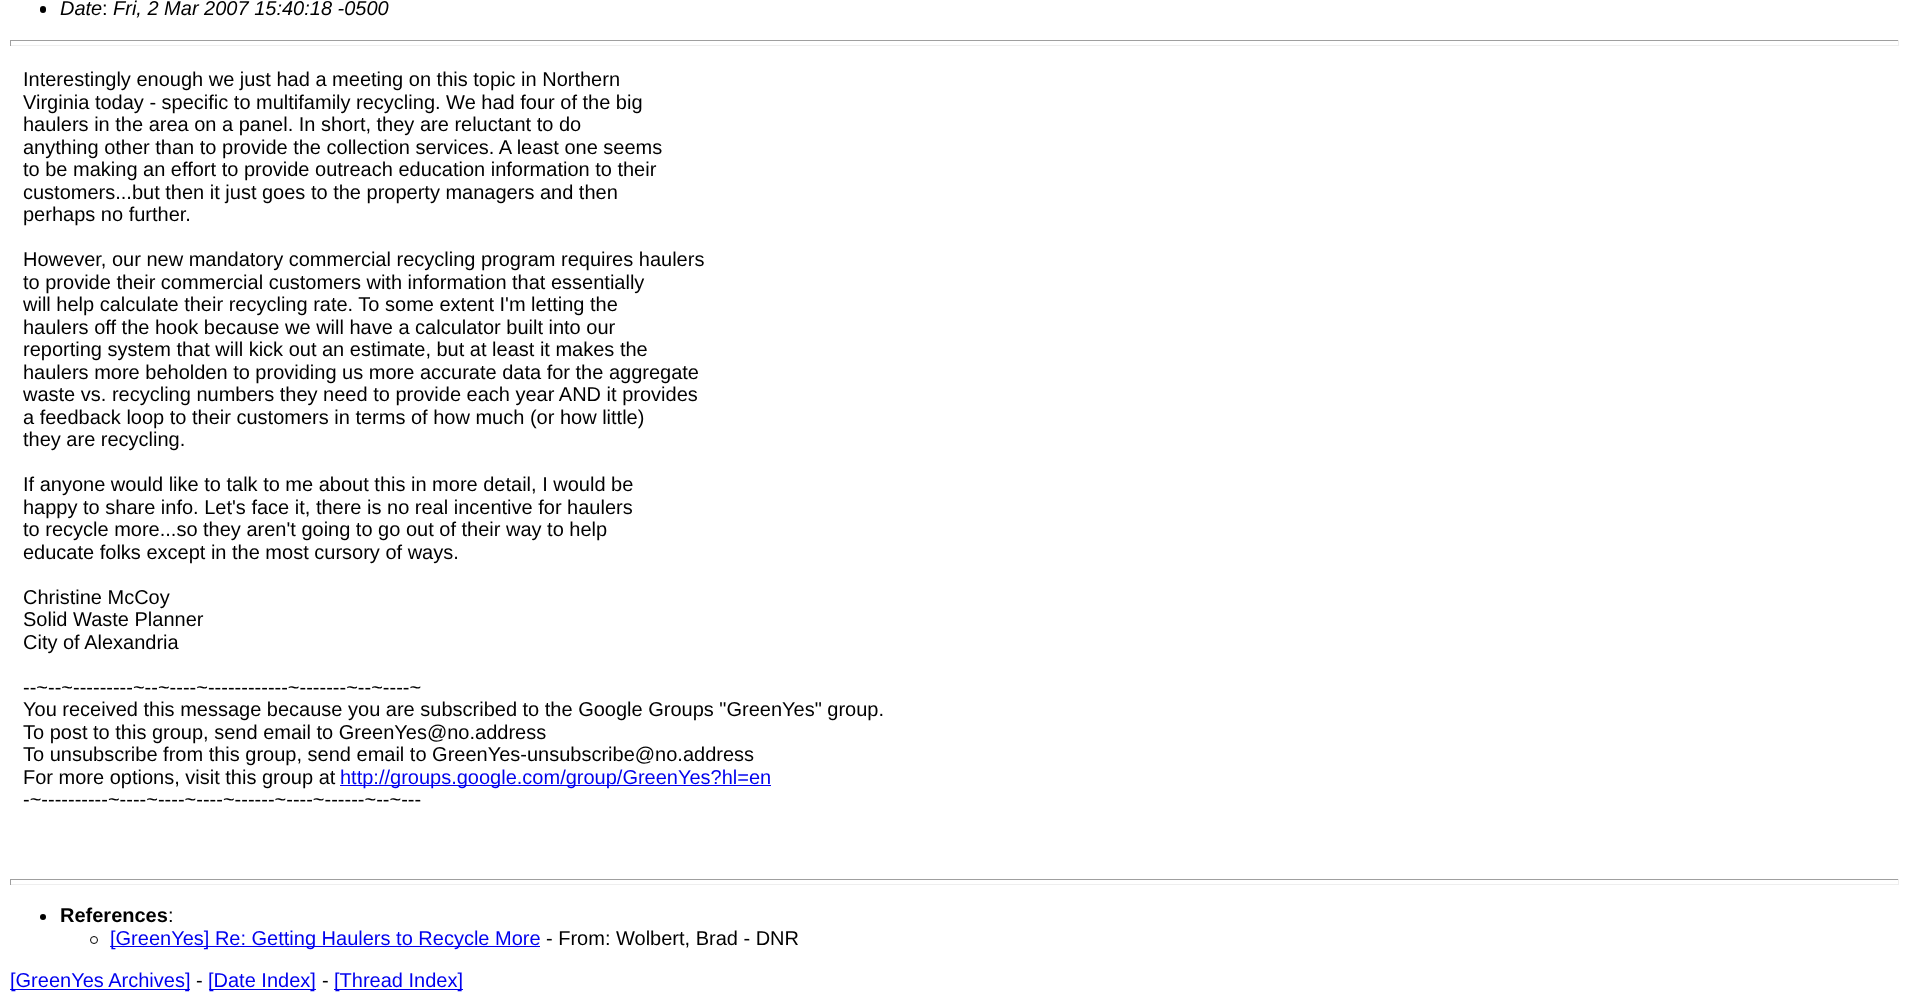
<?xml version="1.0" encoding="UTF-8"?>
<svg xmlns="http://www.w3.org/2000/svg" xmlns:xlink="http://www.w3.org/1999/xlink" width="1908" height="992">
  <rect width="100%" height="100%" fill="#ffffff" />
  <rect x="40" y="6" width="6" height="7" rx="3" fill="#000000" />
  <rect x="10" y="40" width="1889" height="1" fill="#9f9f9f" />
  <rect x="1898" y="40" width="1" height="6" fill="#eeeeee" />
  <rect x="10" y="45" width="1889" height="1" fill="#eeeeee" />
  <rect x="10" y="40" width="1" height="6" fill="#9f9f9f" />
  <rect x="340" y="785" width="431" height="1" fill="#0000ee" />
  <rect x="10" y="879" width="1889" height="1" fill="#9f9f9f" />
  <rect x="1898" y="879" width="1" height="6" fill="#eeeeee" />
  <rect x="10" y="884" width="1889" height="1" fill="#eeeeee" />
  <rect x="10" y="879" width="1" height="6" fill="#9f9f9f" />
  <circle cx="43" cy="917" r="3" fill="#000000" />
  <circle cx="94" cy="940" r="3.5" fill="none" stroke="#000000" />
  <rect x="110" y="946" width="430" height="1" fill="#0000ee" />
  <rect x="10" y="989" width="180" height="1" fill="#0000ee" />
  <rect x="209" y="989" width="107" height="1" fill="#0000ee" />
  <rect x="334" y="989" width="129" height="1" fill="#0000ee" />
  <text x="60" y="15" style="font-family: Liberation Sans; font-size: 20px; font-style: italic; fill: #000000">Date</text>
  <text x="102" y="15" style="font-family: Liberation Sans; font-size: 20px; fill: #000000">:</text>
  <text x="113" y="15" style="font-family: Liberation Sans; font-size: 20px; font-style: italic; fill: #000000">Fri, 2 Mar 2007 15:40:18 -0500</text>
  <text x="23" y="86" style="font-family: Liberation Sans; font-size: 20px; fill: #000000">Interestingly enough we just had a meeting on this topic in Northern</text>
  <text x="23" y="109" style="font-family: Liberation Sans; font-size: 20px; fill: #000000">Virginia today - specific to multifamily recycling. We had four of the big</text>
  <text x="23" y="131" style="font-family: Liberation Sans; font-size: 20px; fill: #000000">haulers in the area on a panel. In short, they are reluctant to do</text>
  <text x="23" y="154" style="font-family: Liberation Sans; font-size: 20px; fill: #000000">anything other than to provide the collection services. A least one seems</text>
  <text x="23" y="176" style="font-family: Liberation Sans; font-size: 20px; fill: #000000">to be making an effort to provide outreach education information to their</text>
  <text x="23" y="199" style="font-family: Liberation Sans; font-size: 20px; fill: #000000">customers...but then it just goes to the property managers and then</text>
  <text x="23" y="221" style="font-family: Liberation Sans; font-size: 20px; fill: #000000">perhaps no further.</text>
  <text x="23" y="266" style="font-family: Liberation Sans; font-size: 20px; fill: #000000">However, our new mandatory commercial recycling program requires haulers</text>
  <text x="23" y="289" style="font-family: Liberation Sans; font-size: 20px; fill: #000000">to provide their commercial customers with information that essentially</text>
  <text x="23" y="311" style="font-family: Liberation Sans; font-size: 20px; fill: #000000">will help calculate their recycling rate. To some extent I'm letting the</text>
  <text x="23" y="334" style="font-family: Liberation Sans; font-size: 20px; fill: #000000">haulers off the hook because we will have a calculator built into our</text>
  <text x="23" y="356" style="font-family: Liberation Sans; font-size: 20px; fill: #000000">reporting system that will kick out an estimate, but at least it makes the</text>
  <text x="23" y="379" style="font-family: Liberation Sans; font-size: 20px; fill: #000000">haulers more beholden to providing us more accurate data for the aggregate</text>
  <text x="23" y="401" style="font-family: Liberation Sans; font-size: 20px; fill: #000000">waste vs. recycling numbers they need to provide each year AND it provides</text>
  <text x="23" y="424" style="font-family: Liberation Sans; font-size: 20px; fill: #000000">a feedback loop to their customers in terms of how much (or how little)</text>
  <text x="23" y="446" style="font-family: Liberation Sans; font-size: 20px; fill: #000000">they are recycling.</text>
  <text x="23" y="491" style="font-family: Liberation Sans; font-size: 20px; fill: #000000">If anyone would like to talk to me about this in more detail, I would be</text>
  <text x="23" y="514" style="font-family: Liberation Sans; font-size: 20px; fill: #000000">happy to share info. Let's face it, there is no real incentive for haulers</text>
  <text x="23" y="536" style="font-family: Liberation Sans; font-size: 20px; fill: #000000">to recycle more...so they aren't going to go out of their way to help</text>
  <text x="23" y="559" style="font-family: Liberation Sans; font-size: 20px; fill: #000000">educate folks except in the most cursory of ways.</text>
  <text x="23" y="604" style="font-family: Liberation Sans; font-size: 20px; fill: #000000">Christine McCoy</text>
  <text x="23" y="626" style="font-family: Liberation Sans; font-size: 20px; fill: #000000">Solid Waste Planner</text>
  <text x="23" y="649" style="font-family: Liberation Sans; font-size: 20px; fill: #000000">City of Alexandria</text>
  <text x="23" y="694" style="font-family: Liberation Sans; font-size: 20px; fill: #000000">--~--~---------~--~----~------------~-------~--~----~</text>
  <text x="23" y="716" style="font-family: Liberation Sans; font-size: 20px; fill: #000000">You received this message because you are subscribed to the Google Groups "GreenYes" group.</text>
  <text x="23" y="739" style="font-family: Liberation Sans; font-size: 20px; fill: #000000">To post to this group, send email to GreenYes@no.address</text>
  <text x="23" y="761" style="font-family: Liberation Sans; font-size: 20px; fill: #000000">To unsubscribe from this group, send email to GreenYes-unsubscribe@no.address</text>
  <text x="23" y="784" style="font-family: Liberation Sans; font-size: 20px; fill: #000000">For more options, visit this group at</text>
  <text x="340" y="784" style="font-family: Liberation Sans; font-size: 20px; fill: #0000ee">http://groups.google.com/group/GreenYes?hl=en</text>
  <text x="23" y="806" style="font-family: Liberation Sans; font-size: 20px; fill: #000000">-~----------~----~----~----~------~----~------~--~---</text>
  <text x="60" y="922" style="font-family: Liberation Sans; font-size: 20px; font-weight: bold; fill: #000000">References</text>
  <text x="168" y="922" style="font-family: Liberation Sans; font-size: 20px; fill: #000000">:</text>
  <text x="110" y="945" style="font-family: Liberation Sans; font-size: 20px; fill: #0000ee">[GreenYes] Re: Getting Haulers to Recycle More</text>
  <text x="546" y="945" style="font-family: Liberation Sans; font-size: 20px; fill: #000000">- From: Wolbert, Brad - DNR</text>
  <text x="10" y="987" style="font-family: Liberation Sans; font-size: 20px; fill: #0000ee">[GreenYes Archives]</text>
  <text x="196" y="987" style="font-family: Liberation Sans; font-size: 20px; fill: #000000">-</text>
  <text x="208" y="987" style="font-family: Liberation Sans; font-size: 20px; fill: #0000ee">[Date Index]</text>
  <text x="322" y="987" style="font-family: Liberation Sans; font-size: 20px; fill: #000000">-</text>
  <text x="334" y="987" style="font-family: Liberation Sans; font-size: 20px; fill: #0000ee">[Thread Index]</text>
</svg>
